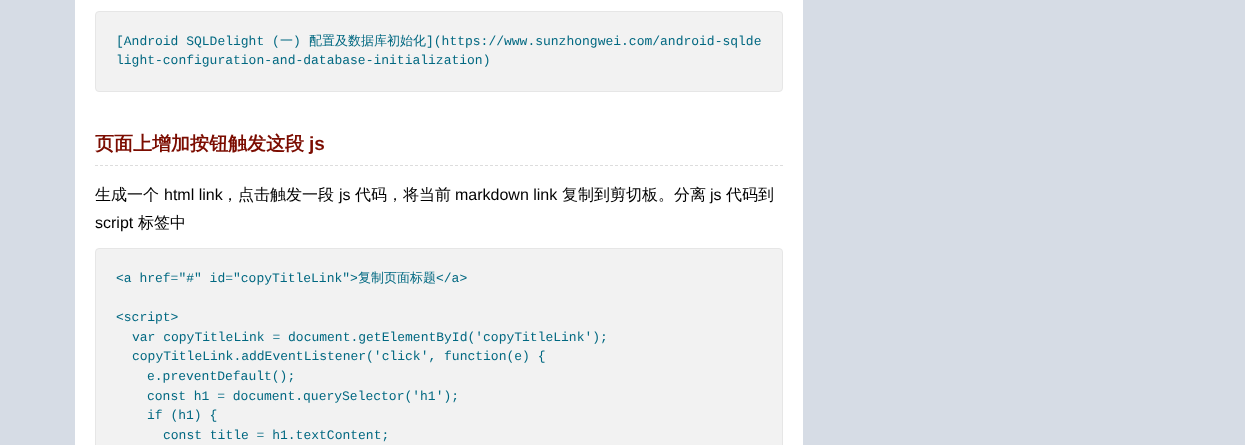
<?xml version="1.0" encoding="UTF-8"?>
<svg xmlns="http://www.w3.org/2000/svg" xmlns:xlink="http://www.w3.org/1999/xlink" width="1245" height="445">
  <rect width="100%" height="100%" fill="#d6dce5" />
  <rect x="75" width="728" height="445" fill="#ffffff" />
  <rect x="95.5" y="11.5" width="687" height="80" rx="3.5" fill="#f2f2f2" stroke="#e6e6e6" />
  <path d="M 95 165.5 h 688" fill="none" stroke="#dddddd" stroke-dasharray="3 2" />
  <rect x="95.5" y="248.5" width="687" height="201" rx="3.5" fill="#f2f2f2" stroke="#e6e6e6" />
  <text x="116" y="45" style="font-family: Liberation Mono; font-size: 13px; fill: #006881">[Android SQLDelight (</text>
  <text x="280" y="45" style="font-family: WenQuanYi Zen Hei; font-size: 13px; font-weight: 500; fill: #006881">一</text>
  <text x="293" y="45" style="font-family: Liberation Mono; font-size: 13px; fill: #006881">)</text>
  <text x="309" y="45" style="font-family: WenQuanYi Zen Hei; font-size: 13px; font-weight: 500; fill: #006881">配置及数据库初始化</text>
  <text x="426" y="45" style="font-family: Liberation Mono; font-size: 13px; fill: #006881">](https://www.sunzhongwei.com/android-sqlde</text>
  <text x="116" y="64" style="font-family: Liberation Mono; font-size: 13px; fill: #006881">light-configuration-and-database-initialization)</text>
  <text x="95" y="150" style="font-family: WenQuanYi Zen Hei; font-size: 19px; font-weight: bold; fill: #7b0c00">页面上增加按钮触发这段</text>
  <text x="309" y="150" style="font-family: Liberation Sans; font-size: 19px; font-weight: bold; fill: #7b0c00">js</text>
  <text x="95" y="200" style="font-family: WenQuanYi Zen Hei; font-size: 16px; font-weight: 500; fill: #000000">生成一个</text>
  <text x="164" y="200" style="font-family: Liberation Sans; font-size: 16px; fill: #000000">html link</text>
  <text x="222" y="200" style="font-family: WenQuanYi Zen Hei; font-size: 16px; font-weight: 500; fill: #000000">，点击触发一段</text>
  <text x="339" y="200" style="font-family: Liberation Sans; font-size: 16px; fill: #000000">js</text>
  <text x="355" y="200" style="font-family: WenQuanYi Zen Hei; font-size: 16px; font-weight: 500; fill: #000000">代码，将当前</text>
  <text x="455" y="200" style="font-family: Liberation Sans; font-size: 16px; fill: #000000">markdown link</text>
  <text x="562" y="200" style="font-family: WenQuanYi Zen Hei; font-size: 16px; font-weight: 500; fill: #000000">复制到剪切板。分离</text>
  <text x="710" y="200" style="font-family: Liberation Sans; font-size: 16px; fill: #000000">js</text>
  <text x="726" y="200" style="font-family: WenQuanYi Zen Hei; font-size: 16px; font-weight: 500; fill: #000000">代码到</text>
  <text x="95" y="228" style="font-family: Liberation Sans; font-size: 16px; fill: #000000">script</text>
  <text x="138" y="228" style="font-family: WenQuanYi Zen Hei; font-size: 16px; font-weight: 500; fill: #000000">标签中</text>
  <text x="116" y="282" style="font-family: Liberation Mono; font-size: 13px; fill: #006881">&lt;a href="#" id="copyTitleLink"&gt;</text>
  <text x="358" y="282" style="font-family: WenQuanYi Zen Hei; font-size: 13px; font-weight: 500; fill: #006881">复制页面标题</text>
  <text x="436" y="282" style="font-family: Liberation Mono; font-size: 13px; fill: #006881">&lt;/a&gt;</text>
  <text x="116" y="321" style="font-family: Liberation Mono; font-size: 13px; fill: #006881">&lt;script&gt;</text>
  <text x="132" y="341" style="font-family: Liberation Mono; font-size: 13px; fill: #006881">var copyTitleLink = document.getElementById('copyTitleLink');</text>
  <text x="132" y="360" style="font-family: Liberation Mono; font-size: 13px; fill: #006881">copyTitleLink.addEventListener('click', function(e) {</text>
  <text x="147" y="380" style="font-family: Liberation Mono; font-size: 13px; fill: #006881">e.preventDefault();</text>
  <text x="147" y="400" style="font-family: Liberation Mono; font-size: 13px; fill: #006881">const h1 = document.querySelector('h1');</text>
  <text x="147" y="419" style="font-family: Liberation Mono; font-size: 13px; fill: #006881">if (h1) {</text>
  <text x="163" y="439" style="font-family: Liberation Mono; font-size: 13px; fill: #006881">const title = h1.textContent;</text>
</svg>
